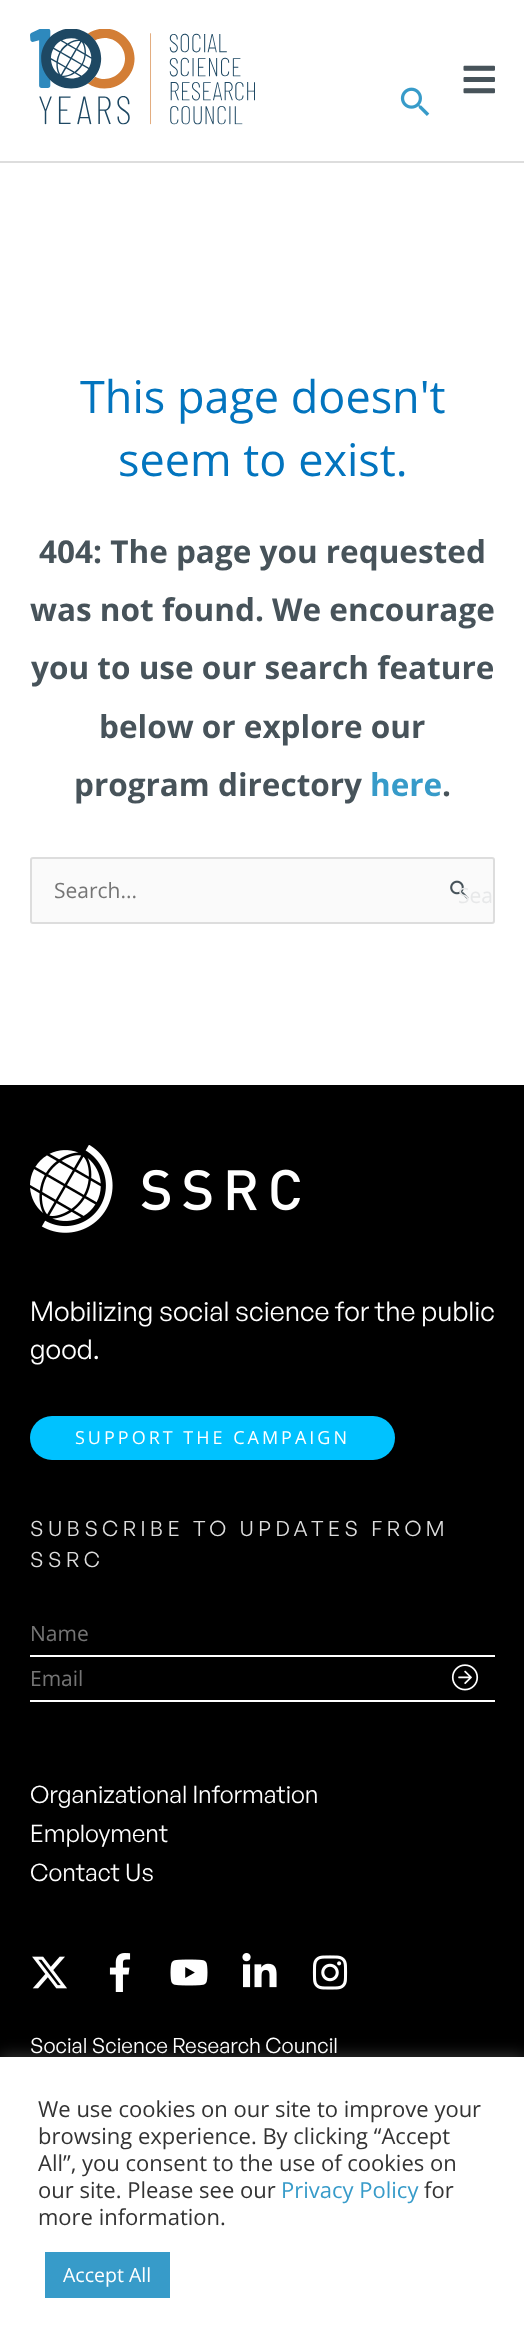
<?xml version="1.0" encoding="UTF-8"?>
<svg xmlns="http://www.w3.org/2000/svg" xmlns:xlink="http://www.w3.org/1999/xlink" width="524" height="2342">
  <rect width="100%" height="100%" fill="#ffffff" />
  <image x="463" y="65" width="32" height="29" xlink:href="image1.png" />
  <rect y="161" width="524" height="2" fill="#dddddd" />
  <image x="30" y="29" width="225" height="96" xlink:href="image2.png" />
  <image x="400" y="87" width="30" height="29" xlink:href="image3.png" />
  <rect x="31" y="858" width="463" height="65" rx="2" fill="#fafafa" stroke="#dddddd" stroke-width="2" />
  <image x="450" y="880" width="19" height="19" xlink:href="image4.png" />
  <rect y="1085" width="524" height="972" fill="#000000" />
  <image x="30" y="1145" width="270" height="88" xlink:href="image5.png" />
  <rect x="30" y="1416" width="365" height="44" rx="22" fill="#00c2ff" />
  <rect x="30" y="1655" width="465" height="2" fill="#ffffff" />
  <rect x="30" y="1700" width="465" height="2" fill="#ffffff" />
  <image x="451" y="1664" width="28" height="27" xlink:href="image6.png" />
  <image x="32" y="1956" width="35" height="33" xlink:href="image7.png" />
  <image x="109" y="1953" width="22" height="39" xlink:href="image8.png" />
  <image x="170" y="1959" width="38" height="27" xlink:href="image9.png" />
  <image x="242" y="1953" width="35" height="35" xlink:href="image10.png" />
  <image x="312" y="1955" width="36" height="35" xlink:href="image11.png" />
  <rect y="2055" width="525" height="287" fill="#acabab" fill-opacity="0.3" filter="blur(7.5px)" />
  <rect y="2057" width="524" height="285" fill="#ffffff" />
  <rect x="45" y="2252" width="125" height="46" fill="#379bc9" />
  <text x="80" y="413" style="font-family: Open Sans; font-size: 45px; fill: #0274be">This page doesn't</text>
  <text x="118" y="476" style="font-family: Open Sans; font-size: 45px; fill: #0274be">seem to exist.</text>
  <text x="39" y="563" style="font-family: Open Sans; font-size: 31.5px; font-weight: bold; fill: #47535a">404: The page you requested</text>
  <text x="30" y="621" style="font-family: Open Sans; font-size: 31.5px; font-weight: bold; fill: #47535a">was not found. We encourage</text>
  <text x="31" y="679" style="font-family: Open Sans; font-size: 31.5px; font-weight: bold; fill: #47535a">you to use our search feature</text>
  <text x="99" y="738" style="font-family: Open Sans; font-size: 31.5px; font-weight: bold; fill: #47535a">below or explore our</text>
  <text x="74" y="796" style="font-family: Open Sans; font-size: 31.5px; font-weight: bold; fill: #47535a">program directory</text>
  <text x="370" y="796" style="font-family: Open Sans; font-size: 31.5px; font-weight: bold; fill: #379bc9">here</text>
  <text x="442" y="796" style="font-family: Open Sans; font-size: 31.5px; font-weight: bold; fill: #47535a">.</text>
  <text x="54" y="898" style="font-family: Open Sans; font-size: 21px; fill: #757575">Search...</text>
  <text x="458" y="903" style="font-family: Open Sans; font-size: 21px; fill: #e7e8e9">Sea</text>
  <text x="30" y="1321" style="font-family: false; font-size: 27px; fill: #ffffff">Mobilizing social science for the public</text>
  <text x="30" y="1359" style="font-family: false; font-size: 27px; fill: #ffffff">good.</text>
  <text x="75" y="1444" style="font-family: Open Sans; font-size: 18px; letter-spacing: 3px; fill: #ffffff">SUPPORT THE CAMPAIGN</text>
  <text x="30" y="1536" style="font-family: false; font-size: 21px; letter-spacing: 4.5px; fill: #dddddd">SUBSCRIBE TO UPDATES FROM</text>
  <text x="30" y="1567" style="font-family: false; font-size: 21px; letter-spacing: 4.5px; fill: #dddddd">SSRC</text>
  <text x="30" y="1641" style="font-family: Open Sans; font-size: 21px; fill: #757575">Name</text>
  <text x="30" y="1686" style="font-family: Open Sans; font-size: 21px; fill: #757575">Email</text>
  <text x="30" y="1803" style="font-family: false; font-size: 24px; fill: #ffffff">Organizational Information</text>
  <text x="30" y="1842" style="font-family: false; font-size: 24px; fill: #ffffff">Employment</text>
  <text x="30" y="1881" style="font-family: false; font-size: 24px; fill: #ffffff">Contact Us</text>
  <text x="30" y="2053" style="font-family: false; font-size: 21px; fill: #ffffff">Social Science Research Council</text>
  <text x="38" y="2117" style="font-family: Open Sans; font-size: 22px; fill: #333333">We use cookies on our site to improve your</text>
  <text x="38" y="2144" style="font-family: Open Sans; font-size: 22px; fill: #333333">browsing experience. By clicking “Accept</text>
  <text x="38" y="2171" style="font-family: Open Sans; font-size: 22px; fill: #333333">All”, you consent to the use of cookies on</text>
  <text x="38" y="2198" style="font-family: Open Sans; font-size: 22px; fill: #333333">our site. Please see our</text>
  <text x="281" y="2198" style="font-family: Open Sans; font-size: 22px; fill: #379bc9">Privacy Policy</text>
  <text x="424" y="2198" style="font-family: Open Sans; font-size: 22px; fill: #333333">for</text>
  <text x="38" y="2225" style="font-family: Open Sans; font-size: 22px; fill: #333333">more information.</text>
  <text x="63" y="2282" style="font-family: Open Sans; font-size: 19.5px; fill: #ffffff">Accept All</text>
</svg>
